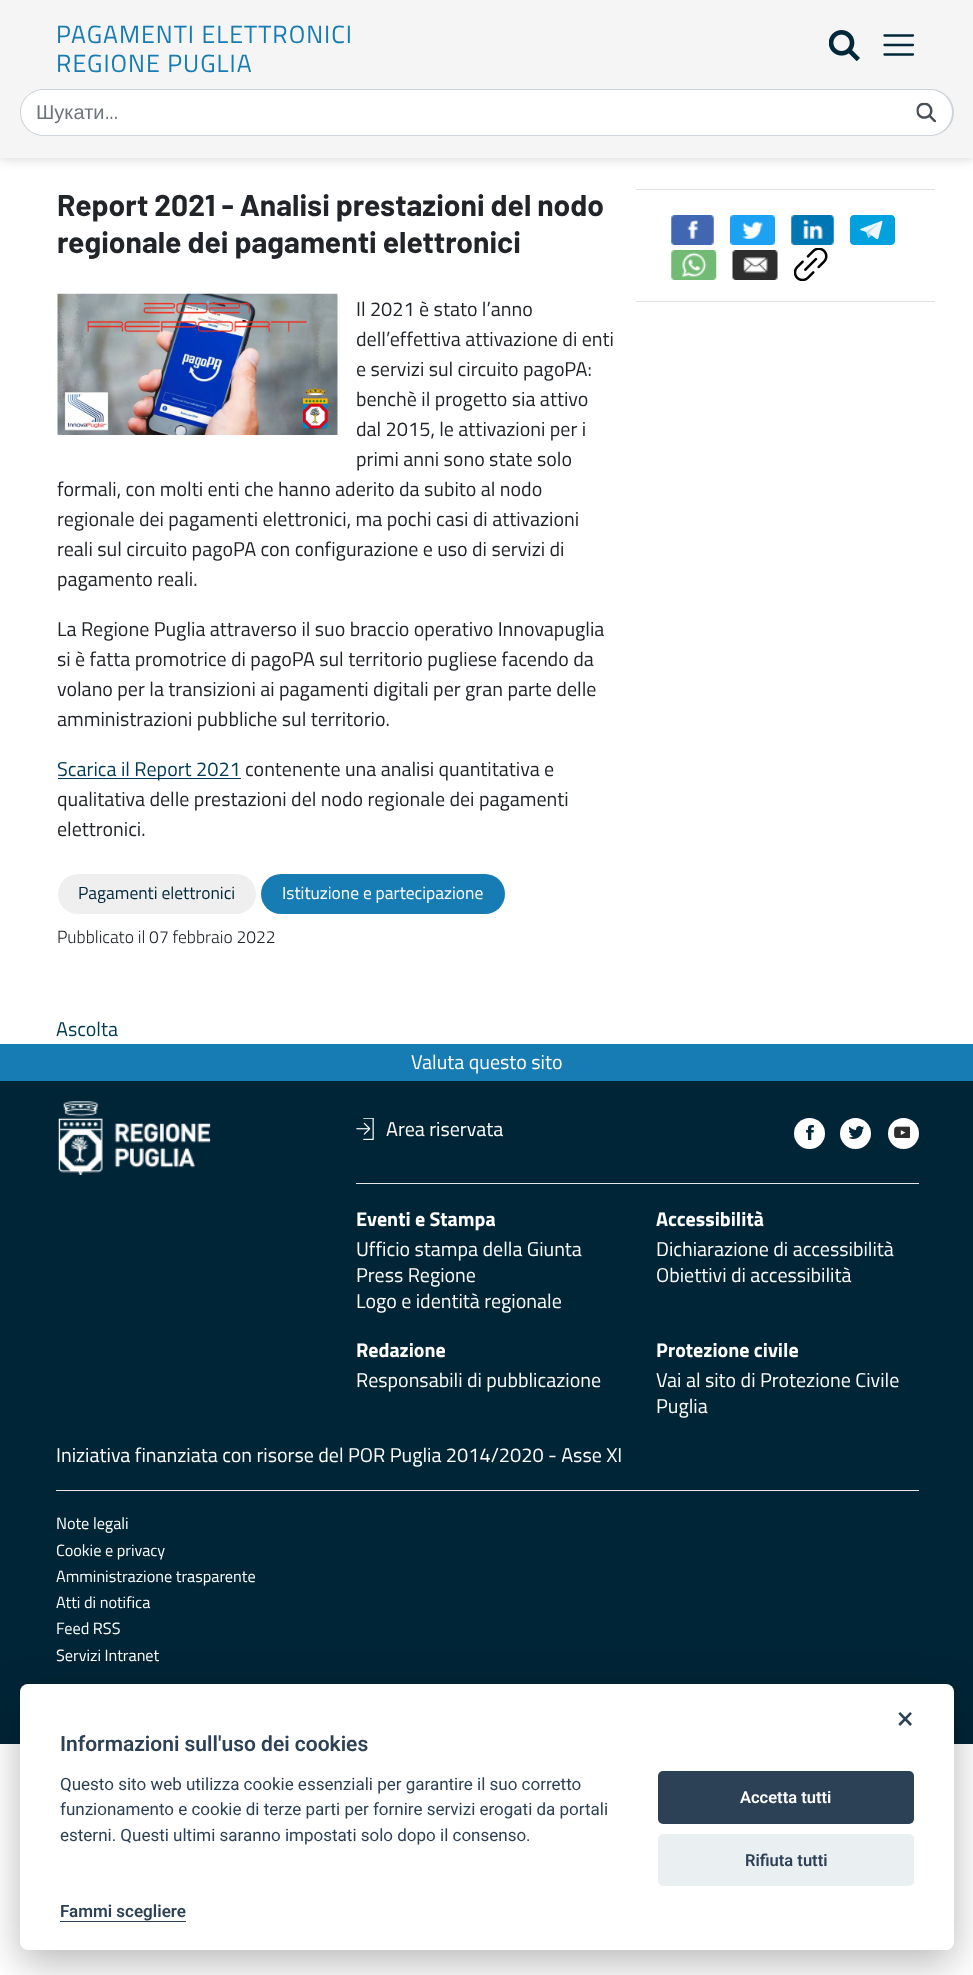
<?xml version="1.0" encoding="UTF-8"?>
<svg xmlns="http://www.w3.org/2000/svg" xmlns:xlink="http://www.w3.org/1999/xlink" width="973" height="1975">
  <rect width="100%" height="100%" fill="#ffffff" />
  <rect y="1" width="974" height="158" fill="#000000" fill-opacity="0.16" filter="blur(6px)" />
  <rect width="973" height="158" fill="#f5f5f5" />
  <image x="829" y="30" width="31" height="31" xlink:href="image1.png" />
  <path d="M 884.5 35.5 h 28.5 m -28.5 9.5 h 28.5 m -28.5 9.5 h 28.5" fill="none" stroke="#01283a" stroke-width="2.3" stroke-linecap="round" />
  <path d="M 43.5 90 h 856.5 v 45 h -856.5 c -12.5 0 -22.5 -10 -22.5 -22.5 c 0 -12.5 10 -22.5 22.5 -22.5 z" fill="#ffffff" />
  <path d="M 44 89 h 856 v 47 h -856 c -13 0 -24 -10 -24 -24 c 0 -13 11 -23 24 -23 z m 0 1 h 856 v 45 h -856 c -13 0 -23 -10 -23 -23 c 0 -12 10 -22 23 -22 z" fill="#ced4da" fill-rule="evenodd" />
  <path d="M 900 90 h 30.5 c 12.5 0 22.5 10 22.5 22.5 c 0 12.5 -10 22.5 -22.5 22.5 h -30.5 z" fill="#ffffff" />
  <path d="M 900 89 h 30 c 13 0 24 10 24 23 c 0 14 -11 24 -24 24 h -30 z m 0 1 h 30 c 12 0 22 10 22 22 c 0 13 -10 23 -22 23 h -30 z" fill="#ced4da" fill-rule="evenodd" />
  <image x="916" y="102" width="20" height="21" xlink:href="image2.png" />
  <image x="57" y="293" width="281" height="142" xlink:href="image3.png" />
  <rect x="58" y="778" width="183" height="1" fill="#003a54" />
  <rect x="636" y="189" width="299" height="1" fill="#dee2e6" />
  <rect x="636" y="301" width="299" height="1" fill="#dee2e6" />
  <image x="671" y="215" width="43" height="30" xlink:href="image4.png" />
  <image x="730" y="215" width="45" height="30" xlink:href="image5.png" />
  <image x="791" y="215" width="43" height="30" xlink:href="image6.png" />
  <image x="850" y="215" width="45" height="30" xlink:href="image7.png" />
  <image x="671" y="250" width="46" height="30" xlink:href="image8.png" />
  <image x="732" y="250" width="46" height="30" xlink:href="image9.png" />
  <image x="794" y="248" width="34" height="33" xlink:href="image10.png" />
  <rect x="58" y="874" width="198" height="40" rx="20" fill="#efefef" />
  <rect x="261" y="874" width="244" height="40" rx="20" fill="#187cb4" />
  <rect y="1044" width="973" height="37" fill="#187cb4" />
  <rect y="1081" width="973" height="663" fill="#002537" />
  <image x="58" y="1101" width="153" height="74" xlink:href="image11.png" />
  <image x="356" y="1118" width="18" height="22" xlink:href="image12.png" />
  <circle cx="809.5" cy="1133.5" r="15.5" fill="#ffffff" />
  <image x="806" y="1125" width="8" height="15" xlink:href="image13.png" />
  <circle cx="855.5" cy="1133.5" r="15.5" fill="#ffffff" />
  <image x="849" y="1126" width="16" height="13" xlink:href="image14.png" />
  <circle cx="903.5" cy="1133.5" r="15.5" fill="#ffffff" />
  <image x="894" y="1126" width="16" height="12" xlink:href="image15.png" />
  <rect x="356" y="1183" width="563" height="1" fill="#e6e6e6" />
  <rect x="56" y="1490" width="863" height="1" fill="#e6e6e6" />
  <rect x="20" y="1696" width="934" height="267" rx="8" fill="#020203" fill-opacity="0.28" filter="blur(19px)" />
  <rect x="20" y="1684" width="934" height="266" rx="8" fill="#ffffff" />
  <rect x="60" y="1921" width="126" height="1" fill="#2d4156" />
  <rect x="658" y="1771" width="256" height="53" rx="5" fill="#2d4156" />
  <rect x="658" y="1834" width="256" height="52" rx="5" fill="#eaeff2" />
  <text x="56" y="43" style="font-family: Titillium Web; font-size: 25px; letter-spacing: 1px; fill: #187cb4">PAGAMENTI ELETTRONICI</text>
  <text x="56" y="72" style="font-family: Titillium Web; font-size: 25px; letter-spacing: 1px; fill: #187cb4">REGIONE PUGLIA</text>
  <text x="36" y="119" style="font-family: Liberation Sans; font-size: 20px; fill: #6c757d">Шукати</text>
  <text x="105" y="119" style="font-family: Titillium Web; font-size: 20px; fill: #6c757d">...</text>
  <text x="57" y="216" style="font-family: Barlow; font-size: 30px; font-weight: bold; fill: #212529">Report 2021 - Analisi prestazioni del nodo</text>
  <text x="57" y="253" style="font-family: Barlow; font-size: 30px; font-weight: bold; fill: #212529">regionale dei pagamenti elettronici</text>
  <text x="356" y="316" style="font-family: Titillium Web; font-size: 20px; fill: #212529">Il 2021 è stato l’anno</text>
  <text x="356" y="346" style="font-family: Titillium Web; font-size: 20px; fill: #212529">dell’effettiva attivazione di enti</text>
  <text x="356" y="376" style="font-family: Titillium Web; font-size: 20px; fill: #212529">e servizi sul circuito pagoPA:</text>
  <text x="356" y="406" style="font-family: Titillium Web; font-size: 20px; fill: #212529">benchè il progetto sia attivo</text>
  <text x="356" y="436" style="font-family: Titillium Web; font-size: 20px; fill: #212529">dal 2015, le attivazioni per i</text>
  <text x="356" y="466" style="font-family: Titillium Web; font-size: 20px; fill: #212529">primi anni sono state solo</text>
  <text x="57" y="496" style="font-family: Titillium Web; font-size: 20px; fill: #212529">formali, con molti enti che hanno aderito da subito al nodo</text>
  <text x="57" y="526" style="font-family: Titillium Web; font-size: 20px; fill: #212529">regionale dei pagamenti elettronici, ma pochi casi di attivazioni</text>
  <text x="57" y="556" style="font-family: Titillium Web; font-size: 20px; fill: #212529">reali sul circuito pagoPA con configurazione e uso di servizi di</text>
  <text x="57" y="586" style="font-family: Titillium Web; font-size: 20px; fill: #212529">pagamento reali.</text>
  <text x="57" y="636" style="font-family: Titillium Web; font-size: 20px; fill: #212529">La Regione Puglia attraverso il suo braccio operativo Innovapuglia</text>
  <text x="57" y="666" style="font-family: Titillium Web; font-size: 20px; fill: #212529">si è fatta promotrice di pagoPA sul territorio pugliese facendo da</text>
  <text x="57" y="696" style="font-family: Titillium Web; font-size: 20px; fill: #212529">volano per la transizioni ai pagamenti digitali per gran parte delle</text>
  <text x="57" y="726" style="font-family: Titillium Web; font-size: 20px; fill: #212529">amministrazioni pubbliche sul territorio.</text>
  <text x="57" y="776" style="font-family: Titillium Web; font-size: 20px; fill: #003a54">Scarica il Report 2021</text>
  <text x="245" y="776" style="font-family: Titillium Web; font-size: 20px; fill: #212529">contenente una analisi quantitativa e</text>
  <text x="57" y="806" style="font-family: Titillium Web; font-size: 20px; fill: #212529">qualitativa delle prestazioni del nodo regionale dei pagamenti</text>
  <text x="57" y="836" style="font-family: Titillium Web; font-size: 20px; fill: #212529">elettronici.</text>
  <text x="78" y="899" style="font-family: Titillium Web; font-size: 17.5px; fill: #01283a">Pagamenti elettronici</text>
  <text x="282" y="899" style="font-family: Titillium Web; font-size: 17.5px; fill: #ffffff">Istituzione e partecipazione</text>
  <text x="57" y="943" style="font-family: Titillium Web; font-size: 17.5px; font-weight: 300; fill: #212529">Pubblicato il 07 febbraio 2022</text>
  <text x="56" y="1036" style="font-family: Titillium Web; font-size: 20px; fill: #003a54">Ascolta</text>
  <text x="411" y="1069" style="font-family: Titillium Web; font-size: 20px; fill: #ffffff">Valuta questo sito</text>
  <text x="386" y="1136" style="font-family: Titillium Web; font-size: 20px; fill: #ffffff">Area riservata</text>
  <text x="356" y="1226" style="font-family: Titillium Web; font-size: 20px; font-weight: bold; fill: #ffffff">Eventi e Stampa</text>
  <text x="356" y="1256" style="font-family: Titillium Web; font-size: 20px; fill: #ffffff">Ufficio stampa della Giunta</text>
  <text x="356" y="1282" style="font-family: Titillium Web; font-size: 20px; fill: #ffffff">Press Regione</text>
  <text x="356" y="1308" style="font-family: Titillium Web; font-size: 20px; fill: #ffffff">Logo e identità regionale</text>
  <text x="656" y="1226" style="font-family: Titillium Web; font-size: 20px; font-weight: bold; fill: #ffffff">Accessibilità</text>
  <text x="656" y="1256" style="font-family: Titillium Web; font-size: 20px; fill: #ffffff">Dichiarazione di accessibilità</text>
  <text x="656" y="1282" style="font-family: Titillium Web; font-size: 20px; fill: #ffffff">Obiettivi di accessibilità</text>
  <text x="356" y="1357" style="font-family: Titillium Web; font-size: 20px; font-weight: bold; fill: #ffffff">Redazione</text>
  <text x="356" y="1387" style="font-family: Titillium Web; font-size: 20px; fill: #ffffff">Responsabili di pubblicazione</text>
  <text x="656" y="1357" style="font-family: Titillium Web; font-size: 20px; font-weight: bold; fill: #ffffff">Protezione civile</text>
  <text x="656" y="1387" style="font-family: Titillium Web; font-size: 20px; fill: #ffffff">Vai al sito di Protezione Civile</text>
  <text x="656" y="1413" style="font-family: Titillium Web; font-size: 20px; fill: #ffffff">Puglia</text>
  <text x="56" y="1462" style="font-family: Titillium Web; font-size: 20px; fill: #ffffff">Iniziativa finanziata con risorse del POR Puglia 2014/2020 - Asse XI</text>
  <text x="56" y="1529" style="font-family: Titillium Web; font-size: 16.25px; fill: #ffffff">Note legali</text>
  <text x="56" y="1556" style="font-family: Titillium Web; font-size: 16.25px; fill: #ffffff">Cookie e privacy</text>
  <text x="56" y="1582" style="font-family: Titillium Web; font-size: 16.25px; fill: #ffffff">Amministrazione trasparente</text>
  <text x="56" y="1608" style="font-family: Titillium Web; font-size: 16.25px; fill: #ffffff">Atti di notifica</text>
  <text x="56" y="1634" style="font-family: Titillium Web; font-size: 16.25px; fill: #ffffff">Feed RSS</text>
  <text x="56" y="1661" style="font-family: Titillium Web; font-size: 16.25px; fill: #ffffff">Servizi Intranet</text>
  <text x="897" y="1729" style="font-family: Roboto; font-size: 31px; fill: #2d4156">×</text>
  <text x="60" y="1751" style="font-family: Roboto; font-size: 21px; font-weight: 600; fill: #2d4156">Informazioni sull'uso dei cookies</text>
  <text x="60" y="1790" style="font-family: Roboto; font-size: 17px; fill: #2d4156">Questo sito web utilizza cookie essenziali per garantire il suo corretto</text>
  <text x="60" y="1815" style="font-family: Roboto; font-size: 17px; fill: #2d4156">funzionamento e cookie di terze parti per fornire servizi erogati da portali</text>
  <text x="60" y="1841" style="font-family: Roboto; font-size: 17px; fill: #2d4156">esterni. Questi ultimi saranno impostati solo dopo il consenso.</text>
  <text x="60" y="1917" style="font-family: Roboto; font-size: 17px; font-weight: 600; fill: #2d4156">Fammi scegliere</text>
  <text x="740" y="1803" style="font-family: Roboto; font-size: 16.5px; font-weight: 600; fill: #ffffff">Accetta tutti</text>
  <text x="745" y="1866" style="font-family: Roboto; font-size: 16.5px; font-weight: 600; fill: #2d4156">Rifiuta tutti</text>
</svg>
